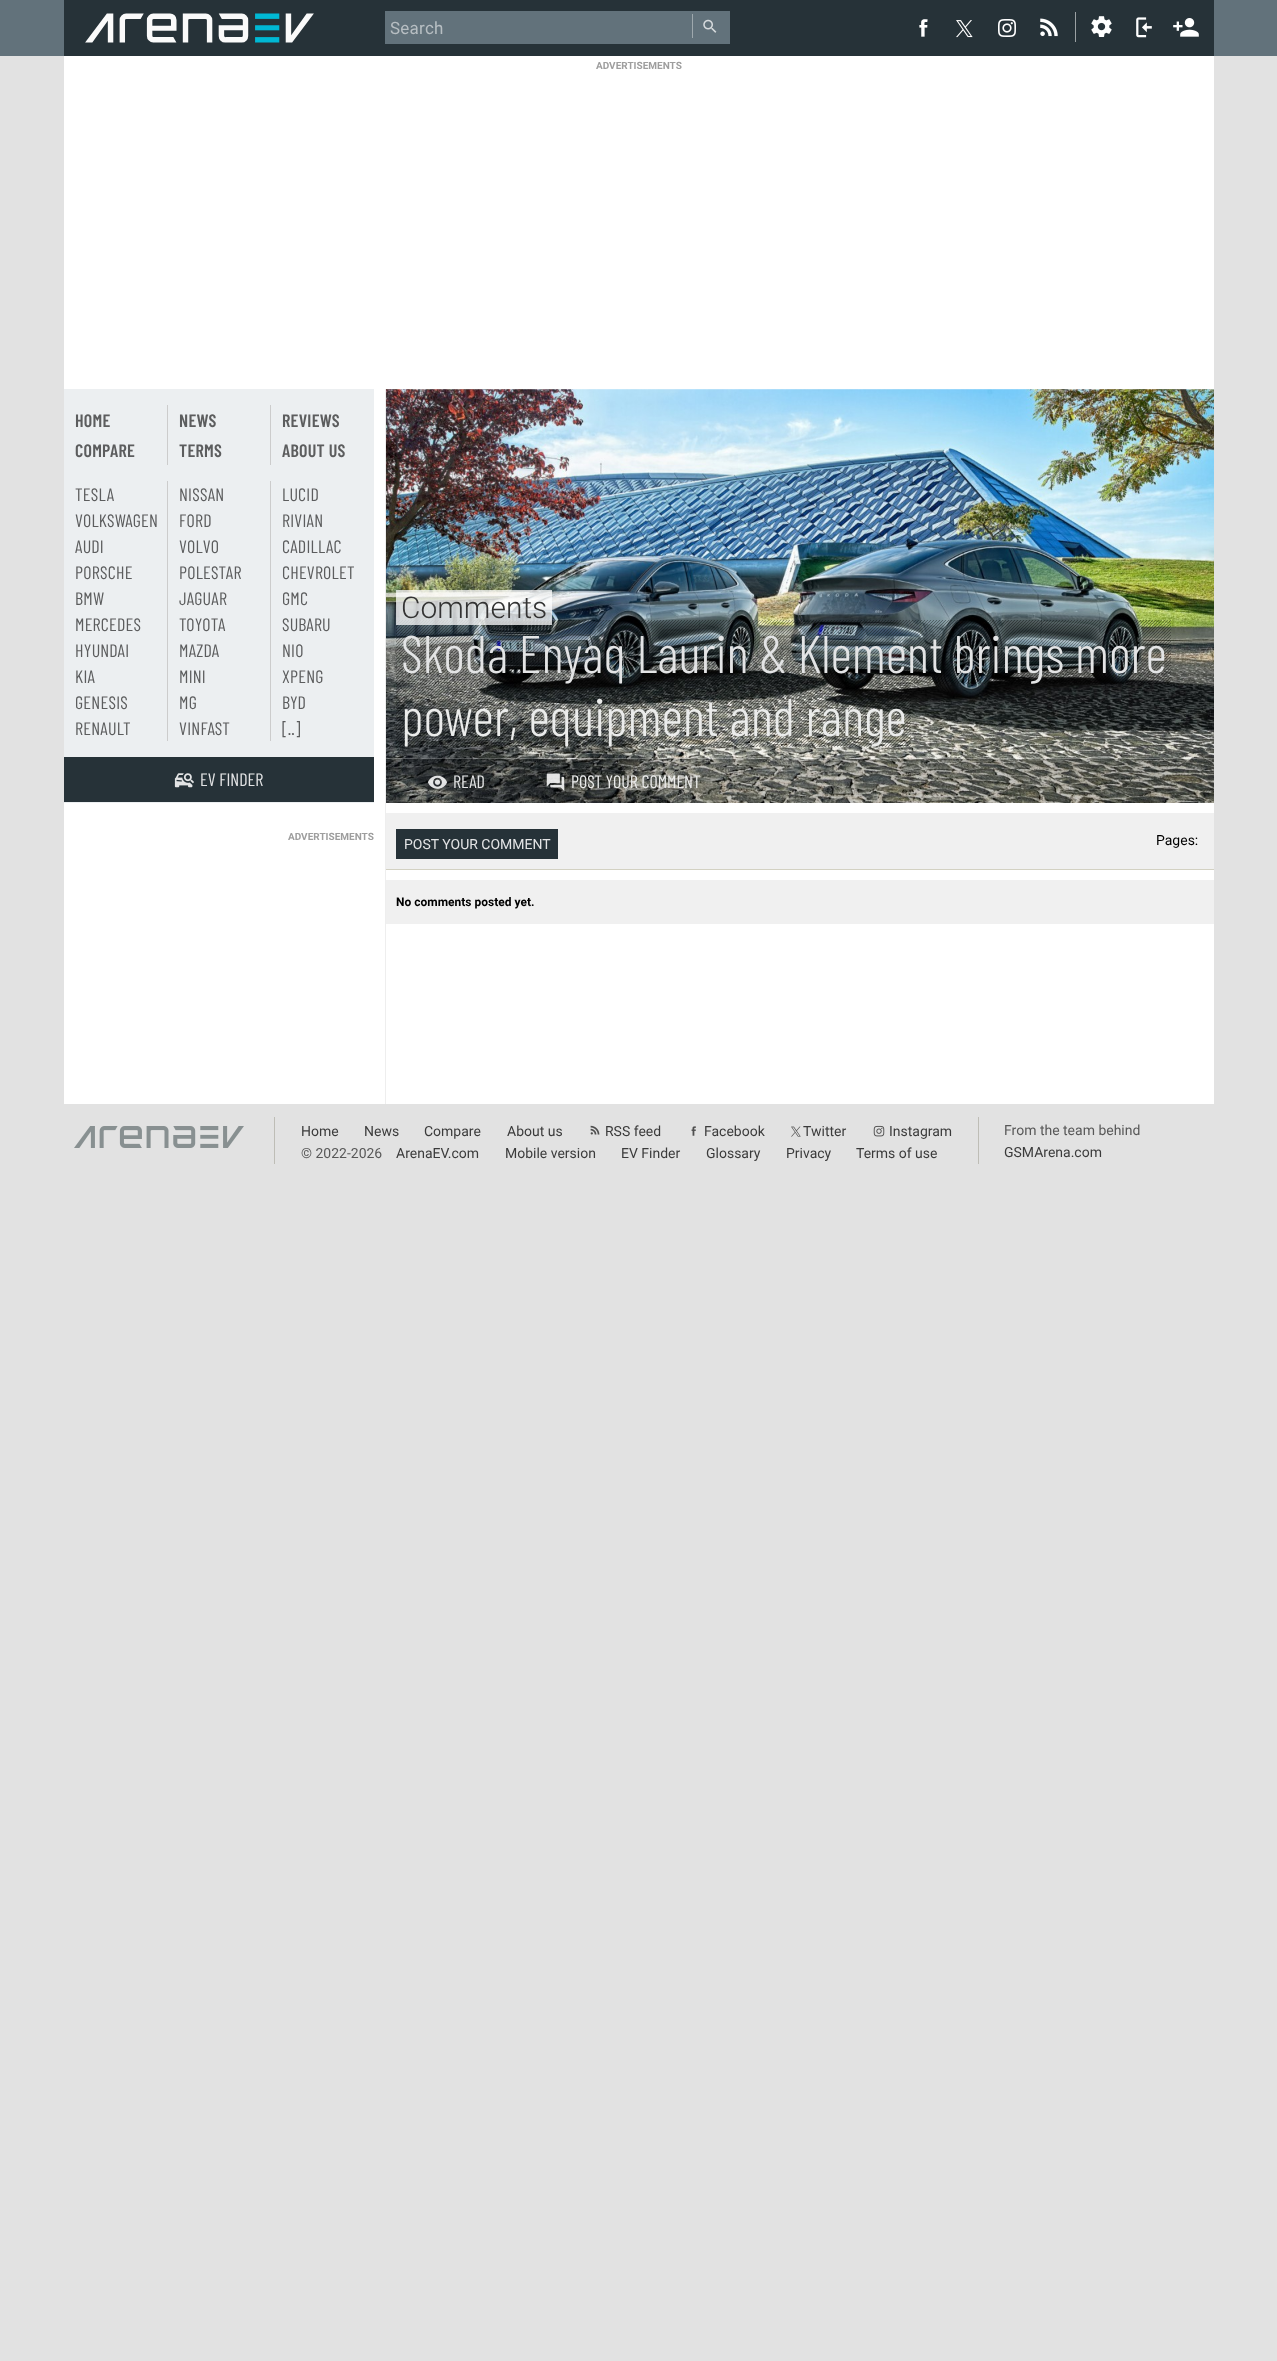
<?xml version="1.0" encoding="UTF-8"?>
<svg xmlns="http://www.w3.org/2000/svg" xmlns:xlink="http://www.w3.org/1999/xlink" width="1277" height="2361">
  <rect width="100%" height="100%" fill="#e2e2e2" />
  <rect width="1277" height="56" fill="#62727b" />
  <rect x="64" width="1150" height="56" fill="#263238" />
  <image x="85" y="13" width="229" height="30" xlink:href="image1.png" />
  <rect x="385" y="11" width="345" height="33" fill="#62727b" />
  <rect x="692" y="14" width="1" height="24" fill="#9ea8ad" />
  <image x="703" y="19" width="14" height="14" xlink:href="image2.png" />
  <image x="919" y="19" width="9" height="18" xlink:href="image3.png" />
  <image x="956" y="20" width="17" height="18" xlink:href="image4.png" />
  <image x="998" y="19" width="18" height="18" xlink:href="image5.png" />
  <rect x="1075" y="12" width="1" height="30" fill="#9ba1a3" />
  <image x="1040" y="18" width="18" height="19" xlink:href="image6.png" />
  <image x="1091" y="16" width="21" height="21" xlink:href="image7.png" />
  <image x="1136" y="17" width="16" height="21" xlink:href="image8.png" />
  <image x="1173" y="18" width="26" height="19" xlink:href="image9.png" />
  <rect x="64" y="56" width="1150" height="1048" fill="#ffffff" />
  <rect x="385" y="389" width="1" height="715" fill="#eeeeee" />
  <rect x="64" y="389" width="310" height="414" fill="#eceff1" />
  <rect x="167" y="405" width="1" height="60" fill="#cccccc" />
  <rect x="270" y="405" width="1" height="60" fill="#cccccc" />
  <rect x="167" y="481" width="1" height="260" fill="#cccccc" />
  <rect x="270" y="481" width="1" height="260" fill="#cccccc" />
  <rect x="64" y="757" width="310" height="45" fill="#263238" />
  <image x="174" y="773" width="20" height="15" xlink:href="image10.png" />
  <image x="386" y="389" width="828" height="414" xlink:href="image11.png" />
  <rect x="386" y="389" width="828" height="1" fill="#ffffff" fill-opacity="0.2" />
  <image x="396" y="620" width="775" height="127" xlink:href="image12.png" />
  <rect x="396" y="590" width="156" height="35" fill="#ffffff" fill-opacity="0.75" />
  <rect x="386" y="758" width="828" height="1" fill="#ffffff" fill-opacity="0.2" />
  <rect x="386" y="759" width="828" height="44" fill="#000000" fill-opacity="0.2" />
  <image x="427" y="775" width="21" height="14" xlink:href="image13.png" />
  <image x="546" y="773" width="19" height="18" xlink:href="image14.png" />
  <rect x="386" y="813" width="828" height="56" fill="#f0f0f0" />
  <rect x="386" y="869" width="828" height="1" fill="#d3d1c2" />
  <rect x="396" y="829" width="162" height="30" fill="#263238" />
  <rect x="386" y="880" width="828" height="44" fill="#f0f0f0" />
  <image x="74" y="1126" width="170" height="22" xlink:href="image15.png" />
  <rect x="978" y="1117" width="1" height="47" fill="#bebdb6" />
  <rect x="274" y="1117" width="1" height="47" fill="#bebdb6" />
  <image x="590" y="1125" width="10" height="10" xlink:href="image16.png" />
  <image x="691" y="1126" width="5" height="10" xlink:href="image17.png" />
  <image x="791" y="1126" width="10" height="11" xlink:href="image18.png" />
  <image x="873" y="1125" width="12" height="12" xlink:href="image19.png" />
  <text x="390" y="34" style="font-family: Roboto; font-size: 17px; letter-spacing: 0.25px; fill: #b7bec2">Search</text>
  <text x="596" y="69" style="font-family: Roboto; font-size: 10px; font-weight: bold; fill: #9e9e9e">ADVERTISEMENTS</text>
  <text x="75" y="427" style="font-family: Barlow Condensed; font-size: 18px; font-weight: 600; letter-spacing: 0.25px; fill: #5c5d5e">HOME</text>
  <text x="179" y="427" style="font-family: Barlow Condensed; font-size: 18px; font-weight: 600; letter-spacing: 0.25px; fill: #5c5d5e">NEWS</text>
  <text x="282" y="427" style="font-family: Barlow Condensed; font-size: 18px; font-weight: 600; letter-spacing: 0.25px; fill: #5c5d5e">REVIEWS</text>
  <text x="75" y="457" style="font-family: Barlow Condensed; font-size: 18px; font-weight: 600; letter-spacing: 0.25px; fill: #5c5d5e">COMPARE</text>
  <text x="179" y="457" style="font-family: Barlow Condensed; font-size: 18px; font-weight: 600; letter-spacing: 0.25px; fill: #5c5d5e">TERMS</text>
  <text x="282" y="457" style="font-family: Barlow Condensed; font-size: 18px; font-weight: 600; letter-spacing: 0.25px; fill: #5c5d5e">ABOUT US</text>
  <text x="75" y="501" style="font-family: Barlow Condensed; font-size: 18px; letter-spacing: 0.25px; fill: #5c5d5e">TESLA</text>
  <text x="179" y="501" style="font-family: Barlow Condensed; font-size: 18px; letter-spacing: 0.25px; fill: #5c5d5e">NISSAN</text>
  <text x="282" y="501" style="font-family: Barlow Condensed; font-size: 18px; letter-spacing: 0.25px; fill: #5c5d5e">LUCID</text>
  <text x="75" y="527" style="font-family: Barlow Condensed; font-size: 18px; letter-spacing: 0.25px; fill: #5c5d5e">VOLKSWAGEN</text>
  <text x="179" y="527" style="font-family: Barlow Condensed; font-size: 18px; letter-spacing: 0.25px; fill: #5c5d5e">FORD</text>
  <text x="282" y="527" style="font-family: Barlow Condensed; font-size: 18px; letter-spacing: 0.25px; fill: #5c5d5e">RIVIAN</text>
  <text x="75" y="553" style="font-family: Barlow Condensed; font-size: 18px; letter-spacing: 0.25px; fill: #5c5d5e">AUDI</text>
  <text x="179" y="553" style="font-family: Barlow Condensed; font-size: 18px; letter-spacing: 0.25px; fill: #5c5d5e">VOLVO</text>
  <text x="282" y="553" style="font-family: Barlow Condensed; font-size: 18px; letter-spacing: 0.25px; fill: #5c5d5e">CADILLAC</text>
  <text x="75" y="579" style="font-family: Barlow Condensed; font-size: 18px; letter-spacing: 0.25px; fill: #5c5d5e">PORSCHE</text>
  <text x="179" y="579" style="font-family: Barlow Condensed; font-size: 18px; letter-spacing: 0.25px; fill: #5c5d5e">POLESTAR</text>
  <text x="282" y="579" style="font-family: Barlow Condensed; font-size: 18px; letter-spacing: 0.25px; fill: #5c5d5e">CHEVROLET</text>
  <text x="75" y="605" style="font-family: Barlow Condensed; font-size: 18px; letter-spacing: 0.25px; fill: #5c5d5e">BMW</text>
  <text x="179" y="605" style="font-family: Barlow Condensed; font-size: 18px; letter-spacing: 0.25px; fill: #5c5d5e">JAGUAR</text>
  <text x="282" y="605" style="font-family: Barlow Condensed; font-size: 18px; letter-spacing: 0.25px; fill: #5c5d5e">GMC</text>
  <text x="75" y="631" style="font-family: Barlow Condensed; font-size: 18px; letter-spacing: 0.25px; fill: #5c5d5e">MERCEDES</text>
  <text x="179" y="631" style="font-family: Barlow Condensed; font-size: 18px; letter-spacing: 0.25px; fill: #5c5d5e">TOYOTA</text>
  <text x="282" y="631" style="font-family: Barlow Condensed; font-size: 18px; letter-spacing: 0.25px; fill: #5c5d5e">SUBARU</text>
  <text x="75" y="657" style="font-family: Barlow Condensed; font-size: 18px; letter-spacing: 0.25px; fill: #5c5d5e">HYUNDAI</text>
  <text x="179" y="657" style="font-family: Barlow Condensed; font-size: 18px; letter-spacing: 0.25px; fill: #5c5d5e">MAZDA</text>
  <text x="282" y="657" style="font-family: Barlow Condensed; font-size: 18px; letter-spacing: 0.25px; fill: #5c5d5e">NIO</text>
  <text x="75" y="683" style="font-family: Barlow Condensed; font-size: 18px; letter-spacing: 0.25px; fill: #5c5d5e">KIA</text>
  <text x="179" y="683" style="font-family: Barlow Condensed; font-size: 18px; letter-spacing: 0.25px; fill: #5c5d5e">MINI</text>
  <text x="282" y="683" style="font-family: Barlow Condensed; font-size: 18px; letter-spacing: 0.25px; fill: #5c5d5e">XPENG</text>
  <text x="75" y="709" style="font-family: Barlow Condensed; font-size: 18px; letter-spacing: 0.25px; fill: #5c5d5e">GENESIS</text>
  <text x="179" y="709" style="font-family: Barlow Condensed; font-size: 18px; letter-spacing: 0.25px; fill: #5c5d5e">MG</text>
  <text x="282" y="709" style="font-family: Barlow Condensed; font-size: 18px; letter-spacing: 0.25px; fill: #5c5d5e">BYD</text>
  <text x="75" y="735" style="font-family: Barlow Condensed; font-size: 18px; letter-spacing: 0.25px; fill: #5c5d5e">RENAULT</text>
  <text x="179" y="735" style="font-family: Barlow Condensed; font-size: 18px; letter-spacing: 0.25px; fill: #5c5d5e">VINFAST</text>
  <text x="282" y="735" style="font-family: Barlow Condensed; font-size: 18px; letter-spacing: 0.25px; fill: #5c5d5e">[..]</text>
  <text x="200" y="786" style="font-family: Barlow Condensed; font-size: 18px; fill: #e3e4e5">EV FINDER</text>
  <text x="288" y="840" style="font-family: Roboto; font-size: 10px; font-weight: bold; fill: #9e9e9e">ADVERTISEMENTS</text>
  <text x="401" y="618" style="font-family: Roboto; font-size: 30px; font-weight: 300; fill: #333333">Comments</text>
  <text x="401" y="673" style="font-family: Barlow Condensed; font-size: 53px; font-weight: 300; fill: #e3e4e5">Skoda Enyaq Laurin &amp; Klement brings more</text>
  <text x="401" y="736" style="font-family: Barlow Condensed; font-size: 53px; font-weight: 300; fill: #ebeceb">power, equipment and range</text>
  <text x="453" y="788" style="font-family: Barlow Condensed; font-size: 18px; fill: #e3e4e5">READ</text>
  <text x="571" y="788" style="font-family: Barlow Condensed; font-size: 18px; fill: #ebeceb">POST YOUR COMMENT</text>
  <text x="404" y="849" style="font-family: Roboto; font-size: 14px; fill: #e3e4e5">POST YOUR COMMENT</text>
  <text x="1156" y="845" style="font-family: Roboto; font-size: 14px; fill: #000000">Pages:</text>
  <text x="396" y="906" style="font-family: Roboto; font-size: 12px; font-weight: bold; fill: #000000">No comments posted yet.</text>
  <text x="301" y="1136" style="font-family: Roboto; font-size: 14px; fill: #3b3b3b">Home</text>
  <text x="364" y="1136" style="font-family: Roboto; font-size: 14px; fill: #3b3b3b">News</text>
  <text x="424" y="1136" style="font-family: Roboto; font-size: 14px; fill: #3b3b3b">Compare</text>
  <text x="507" y="1136" style="font-family: Roboto; font-size: 14px; fill: #3b3b3b">About us</text>
  <text x="605" y="1136" style="font-family: Roboto; font-size: 14px; fill: #3b3b3b">RSS feed</text>
  <text x="704" y="1136" style="font-family: Roboto; font-size: 14px; fill: #3b3b3b">Facebook</text>
  <text x="803" y="1136" style="font-family: Roboto; font-size: 14px; fill: #3b3b3b">Twitter</text>
  <text x="889" y="1136" style="font-family: Roboto; font-size: 14px; fill: #3b3b3b">Instagram</text>
  <text x="301" y="1158" style="font-family: Roboto; font-size: 14px; fill: #585858">© 2022-2026</text>
  <text x="396" y="1158" style="font-family: Roboto; font-size: 14px; fill: #3b3b3b">ArenaEV.com</text>
  <text x="505" y="1158" style="font-family: Roboto; font-size: 14px; fill: #3b3b3b">Mobile version</text>
  <text x="621" y="1158" style="font-family: Roboto; font-size: 14px; fill: #3b3b3b">EV Finder</text>
  <text x="706" y="1158" style="font-family: Roboto; font-size: 14px; fill: #3b3b3b">Glossary</text>
  <text x="786" y="1158" style="font-family: Roboto; font-size: 14px; fill: #3b3b3b">Privacy</text>
  <text x="856" y="1158" style="font-family: Roboto; font-size: 14px; fill: #3b3b3b">Terms of use</text>
  <text x="1004" y="1135" style="font-family: Roboto; font-size: 14px; fill: #585858">From the team behind</text>
  <text x="1004" y="1157" style="font-family: Roboto; font-size: 14px; fill: #3b3b3b">GSMArena.com</text>
</svg>
